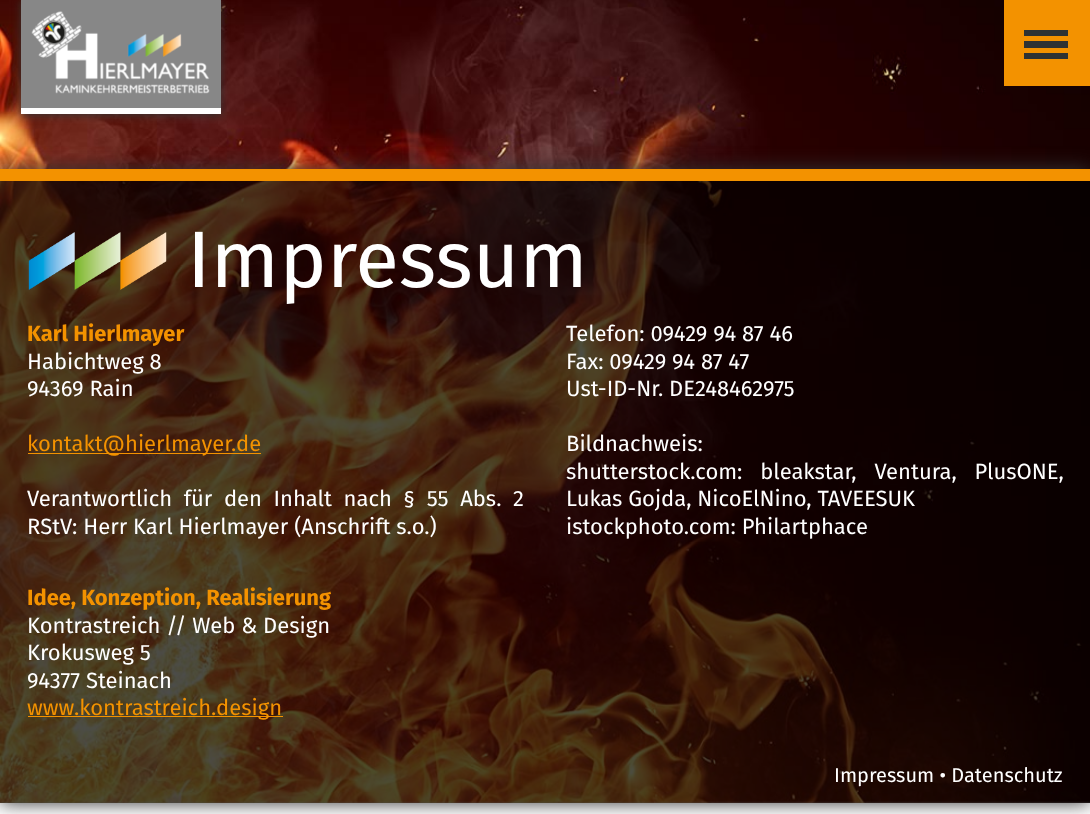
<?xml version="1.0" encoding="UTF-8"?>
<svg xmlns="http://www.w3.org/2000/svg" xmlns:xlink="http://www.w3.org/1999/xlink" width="1090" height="814">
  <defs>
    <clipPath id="clip1"><path d="M 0 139 h 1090 v 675 h -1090 z m 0 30 h 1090 v 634 h -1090 z" clip-rule="evenodd" /></clipPath>
  </defs>
  <rect width="100%" height="100%" fill="#ffffff" />
  <image x="0" y="0" width="1090" height="803" xlink:href="image2.png" />
  <rect x="21" y="1" width="200" height="114" fill="#333333" filter="blur(4px)" />
  <rect x="21" width="200" height="108" fill="#878787" />
  <rect x="21" y="108" width="200" height="6" fill="#ffffff" />
  <image x="31" y="11" width="179" height="83" xlink:href="image1.png" />
  <rect x="1004" width="86" height="86" fill="#f39200" />
  <rect x="1024" y="41" width="44" height="7" fill="#2e3233" />
  <rect x="1024" y="30" width="44" height="6" fill="#2e3233" />
  <rect x="1024" y="53" width="44" height="6" fill="#2e3233" />
  <g clip-path="url(#clip1)">
    <rect y="169" width="1090" height="634" fill="#333333" filter="blur(9.5px)" />
  </g>
  <rect y="181" width="1090" height="622" fill="#000000" fill-opacity="0.7" />
  <rect y="169" width="1090" height="12" fill="#f39200" />
  <image x="28" y="232" width="139" height="58" xlink:href="image3.png" />
  <rect x="28" y="453" width="233" height="1" fill="#f39200" />
  <rect x="28" y="716" width="255" height="1" fill="#f39200" />
  <text x="187" y="287" style="font-family: Fira Sans; font-size: 80px; fill: #ffffff">Impressum</text>
  <text x="27" y="341" style="font-family: Fira Sans; font-size: 22px; font-weight: bold; fill: #f39200">Karl Hierlmayer</text>
  <text x="27" y="369" style="font-family: Fira Sans; font-size: 22px; fill: #ffffff">Habichtweg 8</text>
  <text x="27" y="396" style="font-family: Fira Sans; font-size: 22px; fill: #ffffff">94369 Rain</text>
  <text x="27" y="451" style="font-family: Fira Sans; font-size: 22px; fill: #f39200">kontakt@hierlmayer.de</text>
  <text x="27" y="506" word-spacing="5.75" style="font-family: Fira Sans; font-size: 22px; fill: #ffffff">Verantwortlich für den Inhalt nach § 55 Abs. 2</text>
  <text x="27" y="534" style="font-family: Fira Sans; font-size: 22px; fill: #ffffff">RStV: Herr Karl Hierlmayer (Anschrift s.o.)</text>
  <text x="566" y="341" style="font-family: Fira Sans; font-size: 22px; fill: #ffffff">Telefon: 09429 94 87 46</text>
  <text x="566" y="369" style="font-family: Fira Sans; font-size: 22px; fill: #ffffff">Fax: 09429 94 87 47</text>
  <text x="566" y="396" style="font-family: Fira Sans; font-size: 22px; fill: #ffffff">Ust-ID-Nr. DE248462975</text>
  <text x="566" y="451" style="font-family: Fira Sans; font-size: 22px; fill: #ffffff">Bildnachweis:</text>
  <text x="566" y="479" word-spacing="12" style="font-family: Fira Sans; font-size: 22px; fill: #ffffff">shutterstock.com: bleakstar, Ventura, PlusONE,</text>
  <text x="566" y="506" style="font-family: Fira Sans; font-size: 22px; fill: #ffffff">Lukas Gojda, NicoElNino, TAVEESUK</text>
  <text x="566" y="534" style="font-family: Fira Sans; font-size: 22px; fill: #ffffff">istockphoto.com: Philartphace</text>
  <text x="27" y="605" style="font-family: Fira Sans; font-size: 22px; font-weight: bold; fill: #f39200">Idee, Konzeption, Realisierung</text>
  <text x="27" y="633" style="font-family: Fira Sans; font-size: 22px; fill: #ffffff">Kontrastreich // Web &amp; Design</text>
  <text x="27" y="660" style="font-family: Fira Sans; font-size: 22px; fill: #ffffff">Krokusweg 5</text>
  <text x="27" y="688" style="font-family: Fira Sans; font-size: 22px; fill: #ffffff">94377 Steinach</text>
  <text x="27" y="715" style="font-family: Fira Sans; font-size: 22px; fill: #f39200">www.kontrastreich.design</text>
  <text x="834" y="782" style="font-family: Fira Sans; font-size: 20px; fill: #ffffff">Impressum • Datenschutz</text>
</svg>
